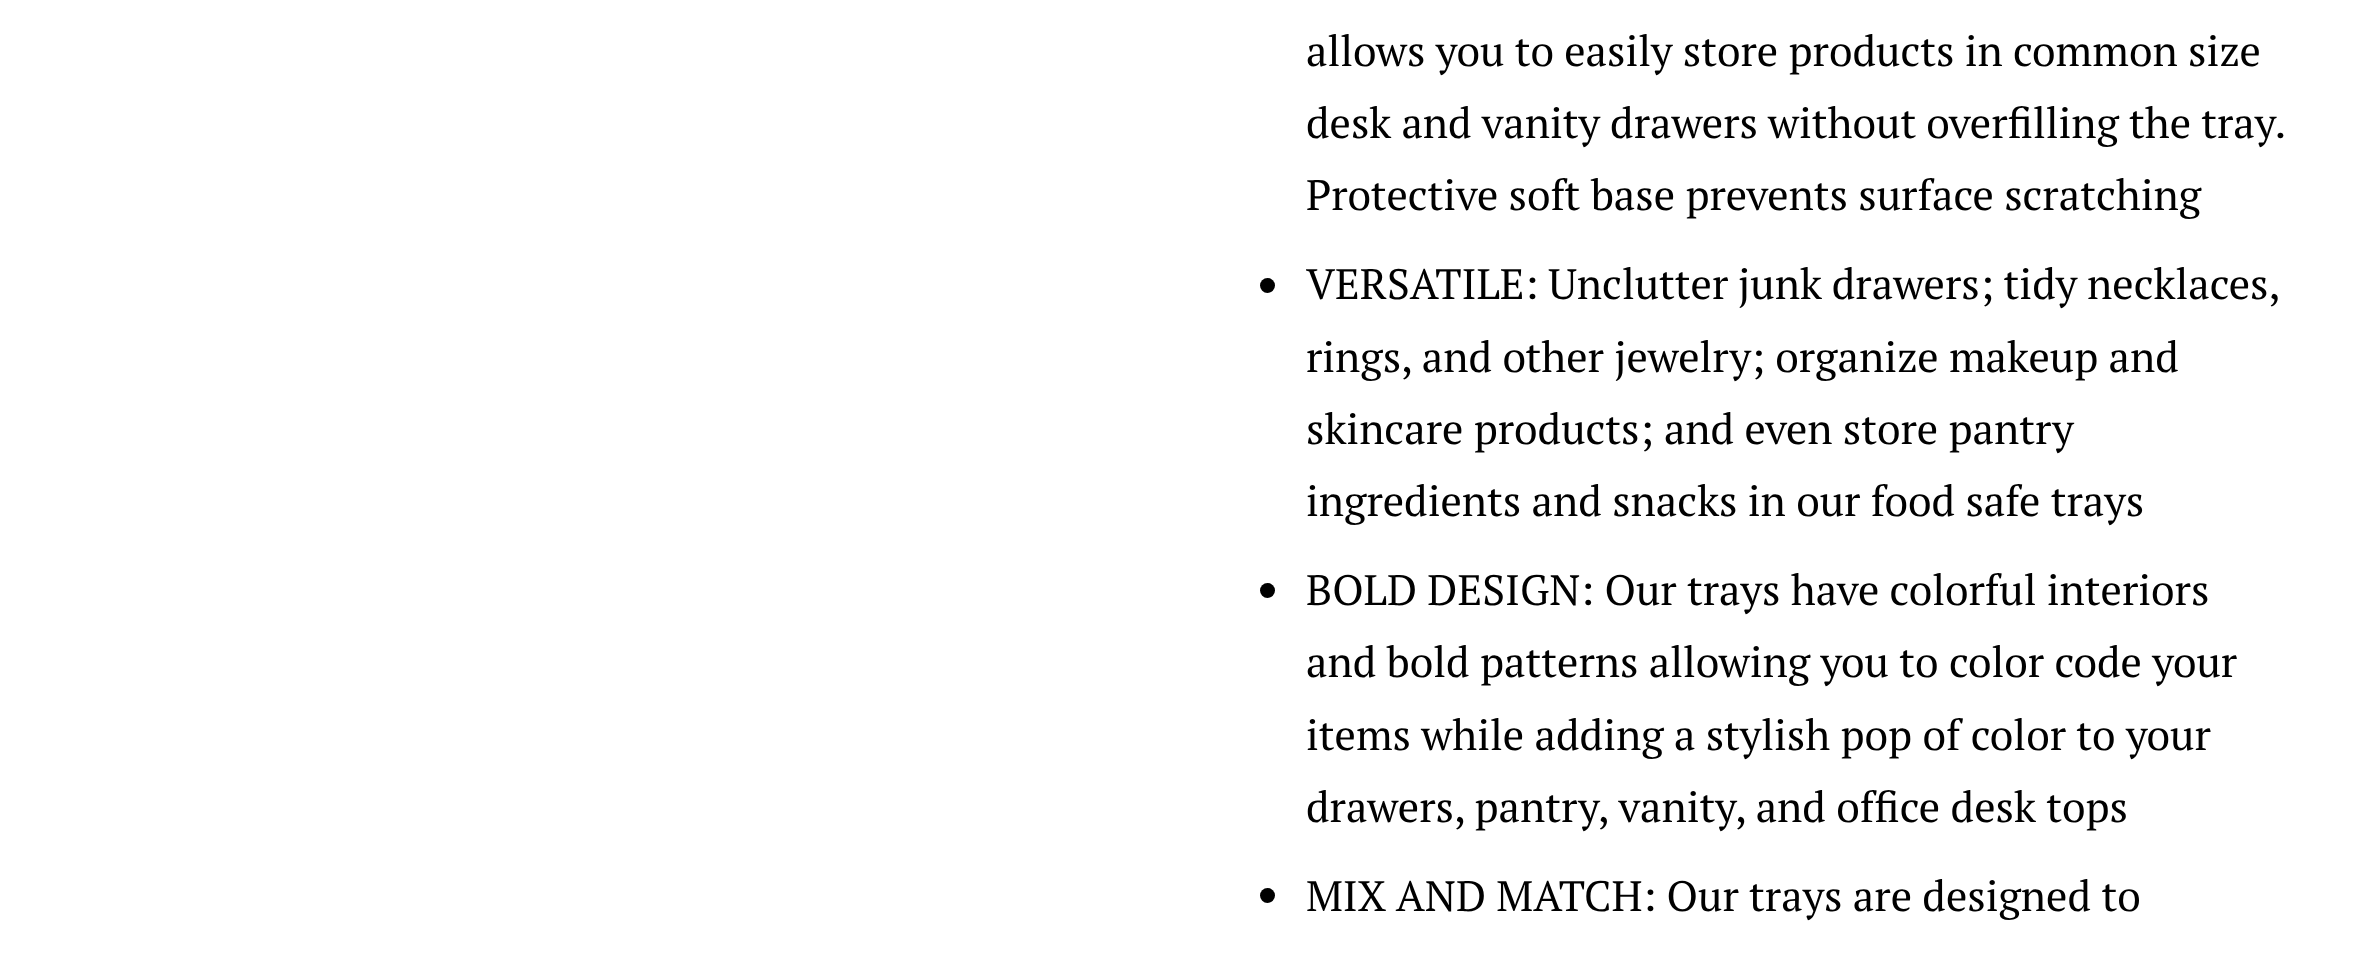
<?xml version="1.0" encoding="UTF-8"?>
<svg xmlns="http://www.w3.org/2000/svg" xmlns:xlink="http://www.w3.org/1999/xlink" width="2362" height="975">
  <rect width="100%" height="100%" fill="#ffffff" />
  <circle cx="1267.5" cy="285.5" r="7.5" fill="#000000" />
  <circle cx="1267.5" cy="590.5" r="7.5" fill="#000000" />
  <circle cx="1267.5" cy="895.5" r="7.5" fill="#000000" />
  <text x="1306" y="66" style="font-family: PT Serif; font-size: 42.5px; fill: #000000">allows you to easily store products in common size</text>
  <text x="1306" y="138" word-spacing="-0.25" style="font-family: PT Serif; font-size: 42.5px; fill: #000000">desk and vanity drawers without overfilling the tray.</text>
  <text x="1306" y="210" style="font-family: PT Serif; font-size: 42.5px; fill: #000000">Protective soft base prevents surface scratching</text>
  <text x="1306" y="299" word-spacing="-0.5" style="font-family: PT Serif; font-size: 42.5px; fill: #000000">VERSATILE: Unclutter junk drawers; tidy necklaces,</text>
  <text x="1306" y="372" style="font-family: PT Serif; font-size: 42.5px; fill: #000000">rings, and other jewelry; organize makeup and</text>
  <text x="1306" y="444" style="font-family: PT Serif; font-size: 42.5px; fill: #000000">skincare products; and even store pantry</text>
  <text x="1306" y="516" style="font-family: PT Serif; font-size: 42.5px; fill: #000000">ingredients and snacks in our food safe trays</text>
  <text x="1306" y="605" style="font-family: PT Serif; font-size: 42.5px; fill: #000000">BOLD DESIGN: Our trays have colorful interiors</text>
  <text x="1306" y="677" style="font-family: PT Serif; font-size: 42.5px; fill: #000000">and bold patterns allowing you to color code your</text>
  <text x="1306" y="750" style="font-family: PT Serif; font-size: 42.5px; fill: #000000">items while adding a stylish pop of color to your</text>
  <text x="1306" y="822" style="font-family: PT Serif; font-size: 42.5px; fill: #000000">drawers, pantry, vanity, and office desk tops</text>
  <text x="1306" y="911" style="font-family: PT Serif; font-size: 42.5px; fill: #000000">MIX AND MATCH: Our trays are designed to</text>
</svg>
